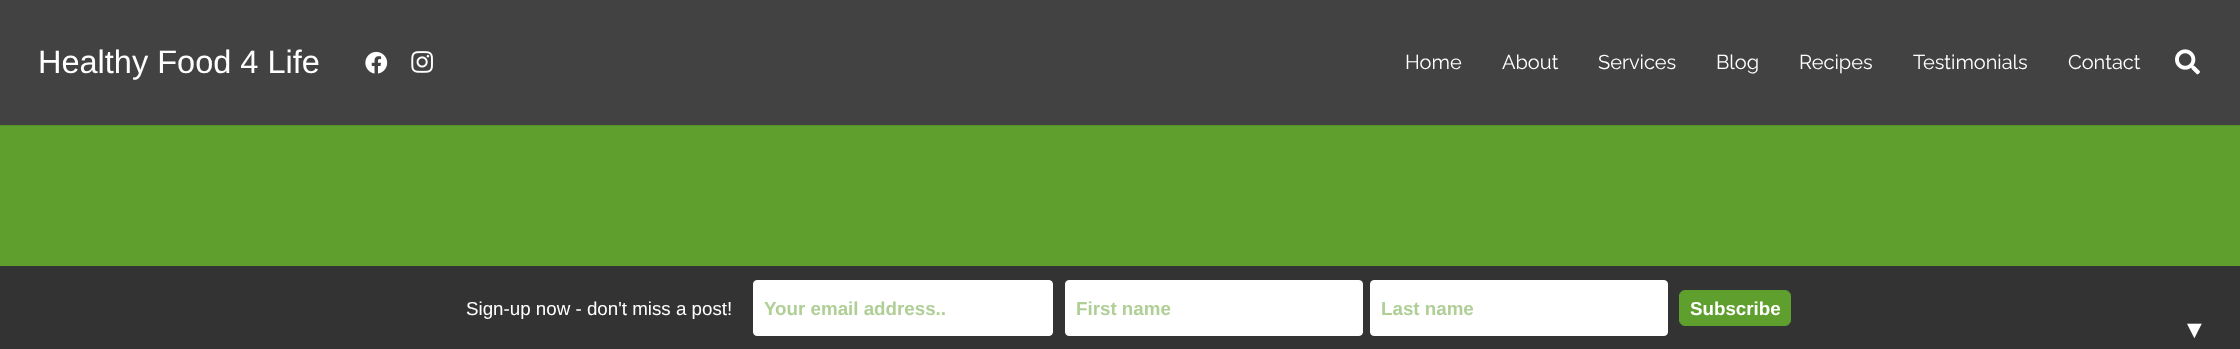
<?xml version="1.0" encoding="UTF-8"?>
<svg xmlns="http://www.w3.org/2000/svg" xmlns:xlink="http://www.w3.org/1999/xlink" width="2240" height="349">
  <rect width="100%" height="100%" fill="#5f9f2d" />
  <rect y="125" width="2240" height="1" fill="#579229" />
  <rect width="2240" height="125" fill="#424242" />
  <image x="365" y="51" width="23" height="23" xlink:href="image1.png" />
  <image x="411" y="51" width="22" height="22" xlink:href="image2.png" />
  <image x="2175" y="49" width="25" height="26" xlink:href="image3.png" />
  <rect y="266" width="2240" height="83" fill="#333333" />
  <rect x="753.5" y="280.5" width="299" height="55" rx="3.5" fill="#ffffff" stroke="#ffffff" />
  <rect x="1065.5" y="280.5" width="297" height="55" rx="3.5" fill="#ffffff" stroke="#ffffff" />
  <rect x="1370.5" y="280.5" width="297" height="55" rx="3.5" fill="#ffffff" stroke="#ffffff" />
  <rect x="1679.5" y="290.5" width="111" height="35" rx="5.5" fill="#5f9f2d" stroke="#5f9f2d" />
  <text x="38" y="73" style="font-family: Arimo; font-size: 32.5px; fill: #ffffff">Healthy Food 4 Life</text>
  <text x="1405" y="69" style="font-family: Raleway; font-size: 20px; fill: #ffffff">Home</text>
  <text x="1502" y="69" style="font-family: Raleway; font-size: 20px; fill: #ffffff">About</text>
  <text x="1598" y="69" style="font-family: Raleway; font-size: 20px; fill: #ffffff">Services</text>
  <text x="1716" y="69" style="font-family: Raleway; font-size: 20px; fill: #ffffff">Blog</text>
  <text x="1799" y="69" style="font-family: Raleway; font-size: 20px; fill: #ffffff">Recipes</text>
  <text x="1913" y="69" style="font-family: Raleway; font-size: 20px; fill: #ffffff">Testimonials</text>
  <text x="2068" y="69" style="font-family: Raleway; font-size: 20px; fill: #ffffff">Contact</text>
  <text x="466" y="315" style="font-family: Arimo; font-size: 18.75px; fill: #ffffff">Sign-up now - don't miss a post!</text>
  <text x="764" y="315" style="font-family: Arimo; font-size: 18.75px; font-weight: bold; fill: #afcf96">Your email address..</text>
  <text x="1076" y="315" style="font-family: Arimo; font-size: 18.75px; font-weight: bold; fill: #afcf96">First name</text>
  <text x="1381" y="315" style="font-family: Arimo; font-size: 18.75px; font-weight: bold; fill: #afcf96">Last name</text>
  <text x="1690" y="315" style="font-family: Arimo; font-size: 18.75px; font-weight: bold; fill: #ffffff">Subscribe</text>
  <text x="2182" y="338" style="font-family: Liberation Sans; font-size: 25px; fill: #ffffff">▼</text>
</svg>
